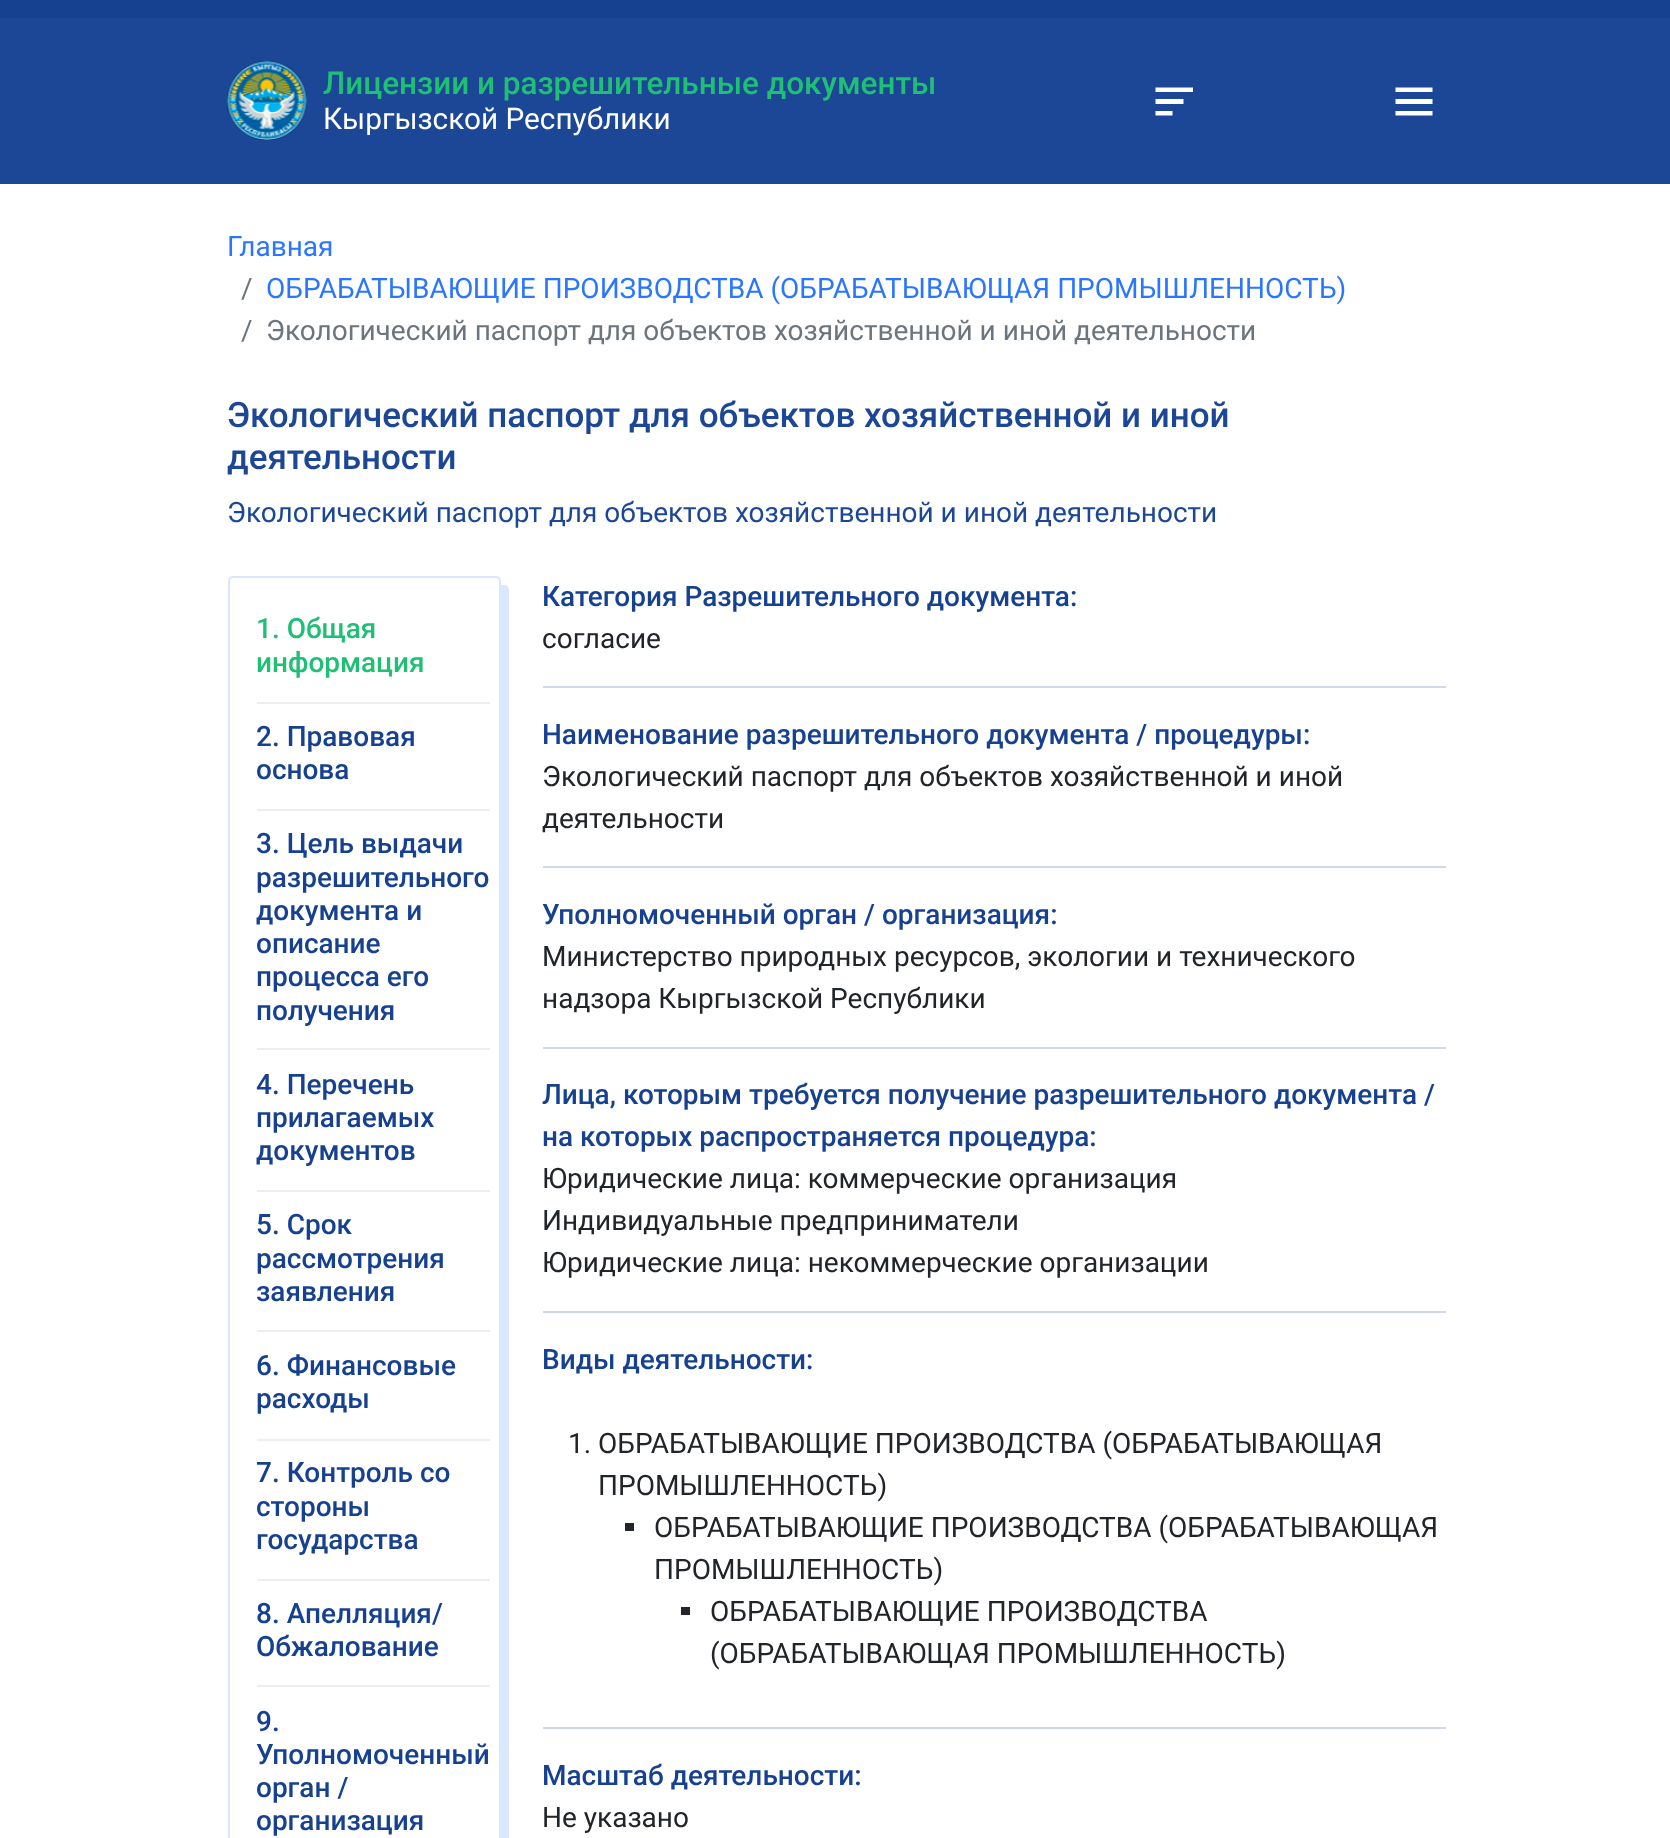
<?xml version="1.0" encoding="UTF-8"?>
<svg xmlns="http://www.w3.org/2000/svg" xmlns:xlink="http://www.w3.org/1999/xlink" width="1670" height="1838">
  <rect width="100%" height="100%" fill="#ffffff" />
  <rect width="1670" height="18" fill="#164190" />
  <rect y="18" width="1670" height="166" fill="#1c4796" />
  <image x="226" y="61" width="81" height="79" xlink:href="image1.png" />
  <path d="M 1155.5 99 h 28 v 5 h -28 z m 0 -11.5 h 37.5 v 4.5 h -37.5 z m 0 28 h 17 v -4.5 h -17 z" fill="#ffffff" />
  <path d="M 1395.5 87.5 h 37 v 4.5 h -37 z m 0 11.5 h 37 v 5 h -37 z m 0 12 h 37 v 4.5 h -37 z" fill="#ffffff" />
  <path d="M 236 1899 v 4 c 0 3 2 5 5 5 h 263 c 3 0 5 -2 5 -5 v -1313 c 0 -3 -2 -5 -5 -5 h -4 v 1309 c 0 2 -2 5 -5 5 z" fill="#dae7ff" />
  <rect x="229" y="577" width="271" height="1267" rx="4" fill="none" stroke="#dae7ff" stroke-width="2" />
  <rect x="257" y="702" width="233" height="2" fill="#eeeeee" />
  <rect x="257" y="809" width="233" height="2" fill="#eeeeee" />
  <rect x="257" y="1048" width="233" height="2" fill="#eeeeee" />
  <rect x="257" y="1190" width="233" height="2" fill="#eeeeee" />
  <rect x="257" y="1330" width="233" height="2" fill="#eeeeee" />
  <rect x="257" y="1439" width="233" height="2" fill="#eeeeee" />
  <rect x="257" y="1579" width="233" height="2" fill="#eeeeee" />
  <rect x="257" y="1685" width="233" height="2" fill="#eeeeee" />
  <rect x="543" y="686" width="903" height="2" fill="#d0d9e9" />
  <rect x="543" y="866" width="903" height="2" fill="#d0d9e9" />
  <rect x="543" y="1047" width="903" height="2" fill="#d0d9e9" />
  <rect x="543" y="1311" width="903" height="2" fill="#d0d9e9" />
  <rect x="543" y="1727" width="903" height="2" fill="#d0d9e9" />
  <rect x="625" y="1523" width="9" height="8" fill="#212529" />
  <rect x="681" y="1607" width="9" height="8" fill="#212529" />
  <text x="323" y="94" style="font-family: Roboto; font-size: 31.5px; font-weight: 500; fill: #1fbf75">Лицензии и разрешительные документы</text>
  <text x="323" y="129" style="font-family: Roboto; font-size: 29.75px; fill: #ffffff">Кыргызской Республики</text>
  <text x="227" y="256" style="font-family: Roboto; font-size: 28px; fill: #2b76ff">Главная</text>
  <text x="241" y="298" style="font-family: Roboto; font-size: 28px; fill: #6c757d">/</text>
  <text x="266" y="298" style="font-family: Roboto; font-size: 28px; fill: #2b76ff">ОБРАБАТЫВАЮЩИЕ ПРОИЗВОДСТВА (ОБРАБАТЫВАЮЩАЯ ПРОМЫШЛЕННОСТЬ)</text>
  <text x="241" y="340" style="font-family: Roboto; font-size: 28px; fill: #6c757d">/</text>
  <text x="266" y="340" style="font-family: Roboto; font-size: 28px; fill: #6c757d">Экологический паспорт для объектов хозяйственной и иной деятельности</text>
  <text x="227" y="427" style="font-family: Roboto; font-size: 35px; font-weight: 500; fill: #1c4796">Экологический паспорт для объектов хозяйственной и иной</text>
  <text x="227" y="469" style="font-family: Roboto; font-size: 35px; font-weight: 500; fill: #1c4796">деятельности</text>
  <text x="227" y="522" style="font-family: Roboto; font-size: 28px; fill: #1c4796">Экологический паспорт для объектов хозяйственной и иной деятельности</text>
  <text x="256" y="638" style="font-family: Roboto; font-size: 28px; font-weight: 500; fill: #1fbf75">1. Общая</text>
  <text x="256" y="672" style="font-family: Roboto; font-size: 28px; font-weight: 500; fill: #1fbf75">информация</text>
  <text x="256" y="746" style="font-family: Roboto; font-size: 28px; font-weight: 500; fill: #164190">2. Правовая</text>
  <text x="256" y="779" style="font-family: Roboto; font-size: 28px; font-weight: 500; fill: #164190">основа</text>
  <text x="256" y="853" style="font-family: Roboto; font-size: 28px; font-weight: 500; fill: #164190">3. Цель выдачи</text>
  <text x="256" y="887" style="font-family: Roboto; font-size: 28px; font-weight: 500; fill: #164190">разрешительного</text>
  <text x="256" y="920" style="font-family: Roboto; font-size: 28px; font-weight: 500; fill: #164190">документа и</text>
  <text x="256" y="953" style="font-family: Roboto; font-size: 28px; font-weight: 500; fill: #164190">описание</text>
  <text x="256" y="986" style="font-family: Roboto; font-size: 28px; font-weight: 500; fill: #164190">процесса его</text>
  <text x="256" y="1020" style="font-family: Roboto; font-size: 28px; font-weight: 500; fill: #164190">получения</text>
  <text x="256" y="1094" style="font-family: Roboto; font-size: 28px; font-weight: 500; fill: #164190">4. Перечень</text>
  <text x="256" y="1127" style="font-family: Roboto; font-size: 28px; font-weight: 500; fill: #164190">прилагаемых</text>
  <text x="256" y="1160" style="font-family: Roboto; font-size: 28px; font-weight: 500; fill: #164190">документов</text>
  <text x="256" y="1234" style="font-family: Roboto; font-size: 28px; font-weight: 500; fill: #164190">5. Срок</text>
  <text x="256" y="1268" style="font-family: Roboto; font-size: 28px; font-weight: 500; fill: #164190">рассмотрения</text>
  <text x="256" y="1301" style="font-family: Roboto; font-size: 28px; font-weight: 500; fill: #164190">заявления</text>
  <text x="256" y="1375" style="font-family: Roboto; font-size: 28px; font-weight: 500; fill: #164190">6. Финансовые</text>
  <text x="256" y="1408" style="font-family: Roboto; font-size: 28px; font-weight: 500; fill: #164190">расходы</text>
  <text x="256" y="1482" style="font-family: Roboto; font-size: 28px; font-weight: 500; fill: #164190">7. Контроль со</text>
  <text x="256" y="1516" style="font-family: Roboto; font-size: 28px; font-weight: 500; fill: #164190">стороны</text>
  <text x="256" y="1549" style="font-family: Roboto; font-size: 28px; font-weight: 500; fill: #164190">государства</text>
  <text x="256" y="1623" style="font-family: Roboto; font-size: 28px; font-weight: 500; fill: #164190">8. Апелляция/</text>
  <text x="256" y="1656" style="font-family: Roboto; font-size: 28px; font-weight: 500; fill: #164190">Обжалование</text>
  <text x="256" y="1731" style="font-family: Roboto; font-size: 28px; font-weight: 500; fill: #164190">9.</text>
  <text x="256" y="1764" style="font-family: Roboto; font-size: 28px; font-weight: 500; fill: #164190">Уполномоченный</text>
  <text x="256" y="1797" style="font-family: Roboto; font-size: 28px; font-weight: 500; fill: #164190">орган /</text>
  <text x="256" y="1830" style="font-family: Roboto; font-size: 28px; font-weight: 500; fill: #164190">организация</text>
  <text x="542" y="606" style="font-family: Roboto; font-size: 28px; font-weight: 500; fill: #164190">Категория Разрешительного документа:</text>
  <text x="542" y="648" style="font-family: Roboto; font-size: 28px; fill: #212529">согласие</text>
  <text x="542" y="744" style="font-family: Roboto; font-size: 28px; font-weight: 500; fill: #164190">Наименование разрешительного документа / процедуры:</text>
  <text x="542" y="786" style="font-family: Roboto; font-size: 28px; fill: #212529">Экологический паспорт для объектов хозяйственной и иной</text>
  <text x="542" y="828" style="font-family: Roboto; font-size: 28px; fill: #212529">деятельности</text>
  <text x="542" y="924" style="font-family: Roboto; font-size: 28px; font-weight: 500; fill: #164190">Уполномоченный орган / организация:</text>
  <text x="542" y="966" style="font-family: Roboto; font-size: 28px; fill: #212529">Министерство природных ресурсов, экологии и технического</text>
  <text x="542" y="1008" style="font-family: Roboto; font-size: 28px; fill: #212529">надзора Кыргызской Республики</text>
  <text x="542" y="1104" style="font-family: Roboto; font-size: 28px; font-weight: 500; fill: #164190">Лица, которым требуется получение разрешительного документа /</text>
  <text x="542" y="1146" style="font-family: Roboto; font-size: 28px; font-weight: 500; fill: #164190">на которых распространяется процедура:</text>
  <text x="542" y="1188" style="font-family: Roboto; font-size: 28px; fill: #212529">Юридические лица: коммерческие организация</text>
  <text x="542" y="1230" style="font-family: Roboto; font-size: 28px; fill: #212529">Индивидуальные предприниматели</text>
  <text x="542" y="1272" style="font-family: Roboto; font-size: 28px; fill: #212529">Юридические лица: некоммерческие организации</text>
  <text x="542" y="1369" style="font-family: Roboto; font-size: 28px; font-weight: 500; fill: #164190">Виды деятельности:</text>
  <text x="568" y="1453" style="font-family: Roboto; font-size: 28px; fill: #212529">1. ОБРАБАТЫВАЮЩИЕ ПРОИЗВОДСТВА (ОБРАБАТЫВАЮЩАЯ</text>
  <text x="598" y="1495" style="font-family: Roboto; font-size: 28px; fill: #212529">ПРОМЫШЛЕННОСТЬ)</text>
  <text x="654" y="1537" style="font-family: Roboto; font-size: 28px; fill: #212529">ОБРАБАТЫВАЮЩИЕ ПРОИЗВОДСТВА (ОБРАБАТЫВАЮЩАЯ</text>
  <text x="654" y="1579" style="font-family: Roboto; font-size: 28px; fill: #212529">ПРОМЫШЛЕННОСТЬ)</text>
  <text x="710" y="1621" style="font-family: Roboto; font-size: 28px; fill: #212529">ОБРАБАТЫВАЮЩИЕ ПРОИЗВОДСТВА</text>
  <text x="710" y="1663" style="font-family: Roboto; font-size: 28px; fill: #212529">(ОБРАБАТЫВАЮЩАЯ ПРОМЫШЛЕННОСТЬ)</text>
  <text x="542" y="1785" style="font-family: Roboto; font-size: 28px; font-weight: 500; fill: #164190">Масштаб деятельности:</text>
  <text x="542" y="1827" style="font-family: Roboto; font-size: 28px; fill: #212529">Не указано</text>
</svg>
